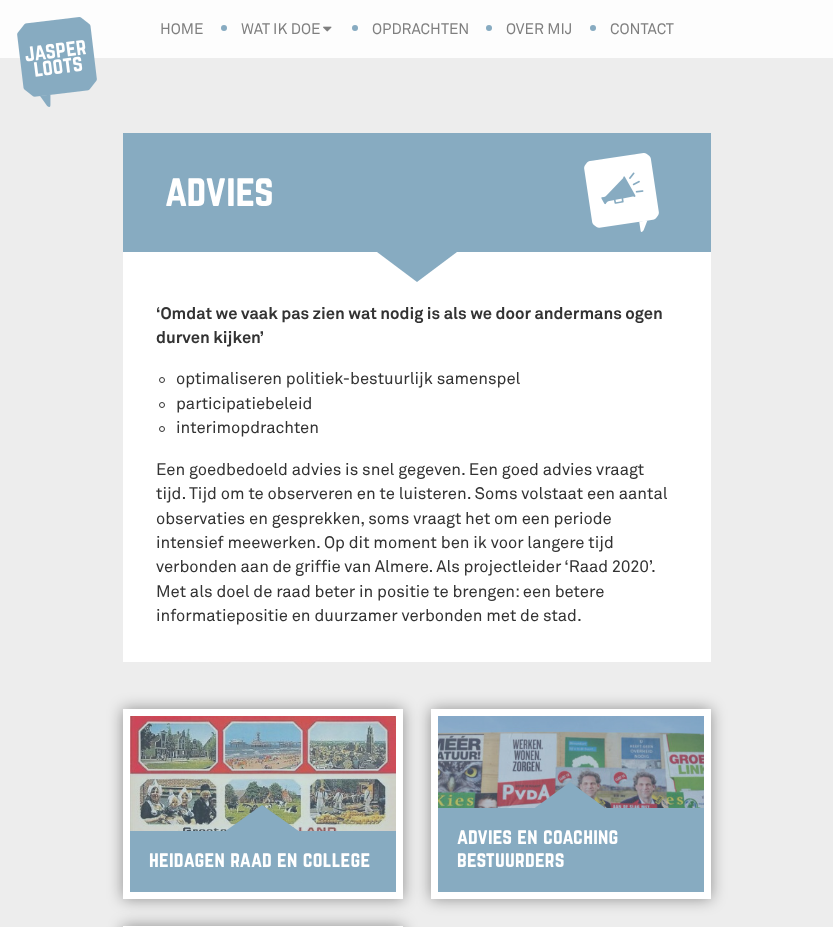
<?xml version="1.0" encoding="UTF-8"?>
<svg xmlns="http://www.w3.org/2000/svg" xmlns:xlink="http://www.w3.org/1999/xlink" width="833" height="927">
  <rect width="100%" height="100%" fill="#ededed" />
  <rect width="833" height="58" fill="#fdfdfd" />
  <image x="17" y="17" width="80" height="90" xlink:href="image1.png" />
  <circle cx="224" cy="28" r="3" fill="#87abc1" />
  <image x="323" y="26" width="9" height="6" xlink:href="image2.png" />
  <circle cx="355" cy="28" r="3" fill="#87abc1" />
  <circle cx="489" cy="28" r="3" fill="#87abc1" />
  <circle cx="593" cy="28" r="3" fill="#87abc1" />
  <rect x="123" y="133" width="588" height="119" fill="#87abc1" />
  <image x="584" y="153" width="75" height="79" xlink:href="image3.png" />
  <rect x="123" y="252" width="588" height="410" fill="#ffffff" />
  <path d="M 377 252 h 80 l -40 30 z" fill="#87abc1" />
  <circle cx="162" cy="380" r="2.5" fill="none" stroke="#333333" />
  <circle cx="162" cy="405" r="2.5" fill="none" stroke="#333333" />
  <circle cx="162" cy="429" r="2.5" fill="none" stroke="#333333" />
  <rect x="123" y="709" width="280" height="190" fill="#000000" fill-opacity="0.4" filter="blur(7.5px)" />
  <rect x="123" y="709" width="280" height="190" fill="#ffffff" />
  <image x="130" y="716" width="266" height="115" xlink:href="image4.png" />
  <rect x="130" y="831" width="266" height="61" fill="#87abc1" />
  <path d="M 300 832 h -76 l 38 -27 z" fill="#87abc1" />
  <rect x="431" y="709" width="280" height="190" fill="#000000" fill-opacity="0.4" filter="blur(7.5px)" />
  <rect x="431" y="709" width="280" height="190" fill="#ffffff" />
  <image x="438" y="716" width="266" height="92" xlink:href="image5.png" />
  <rect x="438" y="808" width="266" height="84" fill="#87abc1" />
  <path d="M 608 810 h -76 l 38 -28 z" fill="#87abc1" />
  <rect x="123" y="926" width="280" height="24" fill="#000000" fill-opacity="0.4" filter="blur(7.5px)" />
  <rect x="123" y="926" width="280" height="1" fill="#ffffff" />
  <text x="160" y="34" style="font-family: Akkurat; font-size: 15px; fill: #7f7f7f">HOME</text>
  <text x="241" y="34" style="font-family: Akkurat; font-size: 15px; fill: #7f7f7f">WAT IK DOE</text>
  <text x="372" y="34" style="font-family: Akkurat; font-size: 15px; fill: #7f7f7f">OPDRACHTEN</text>
  <text x="506" y="34" style="font-family: Akkurat; font-size: 15px; fill: #7f7f7f">OVER MIJ</text>
  <text x="610" y="34" style="font-family: Akkurat; font-size: 15px; fill: #7f7f7f">CONTACT</text>
  <text x="165" y="206" style="font-family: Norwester; font-size: 39.5px; fill: #ffffff">advies</text>
  <text x="156" y="319" style="font-family: Akkurat; font-size: 16.6px; font-weight: bold; fill: #333333">‘Omdat we vaak pas zien wat nodig is als we door andermans ogen</text>
  <text x="156" y="343" style="font-family: Akkurat; font-size: 16.6px; font-weight: bold; fill: #333333">durven kijken’</text>
  <text x="176" y="384" style="font-family: Akkurat; font-size: 16.6px; fill: #333333">optimaliseren politiek-bestuurlijk samenspel</text>
  <text x="176" y="409" style="font-family: Akkurat; font-size: 16.6px; fill: #333333">participatiebeleid</text>
  <text x="176" y="433" style="font-family: Akkurat; font-size: 16.6px; fill: #333333">interimopdrachten</text>
  <text x="156" y="475" style="font-family: Akkurat; font-size: 16.6px; fill: #333333">Een goedbedoeld advies is snel gegeven. Een goed advies vraagt</text>
  <text x="156" y="499" style="font-family: Akkurat; font-size: 16.6px; fill: #333333">tijd. Tijd om te observeren en te luisteren. Soms volstaat een aantal</text>
  <text x="156" y="524" style="font-family: Akkurat; font-size: 16.6px; fill: #333333">observaties en gesprekken, soms vraagt het om een periode</text>
  <text x="156" y="548" style="font-family: Akkurat; font-size: 16.6px; fill: #333333">intensief meewerken. Op dit moment ben ik voor langere tijd</text>
  <text x="156" y="572" word-spacing="-0.25" style="font-family: Akkurat; font-size: 16.6px; fill: #333333">verbonden aan de griffie van Almere. Als projectleider ‘Raad 2020’.</text>
  <text x="156" y="597" style="font-family: Akkurat; font-size: 16.6px; fill: #333333">Met als doel de raad beter in positie te brengen: een betere</text>
  <text x="156" y="621" style="font-family: Akkurat; font-size: 16.6px; fill: #333333">informatiepositie en duurzamer verbonden met de stad.</text>
  <text x="149" y="867" style="font-family: Norwester; font-size: 19.5px; letter-spacing: 0.25px; fill: #ffffff">heidagen raad en college</text>
  <text x="457" y="844" style="font-family: Norwester; font-size: 19.5px; letter-spacing: 0.25px; fill: #ffffff">advies en coaching</text>
  <text x="457" y="867" style="font-family: Norwester; font-size: 19.5px; letter-spacing: 0.25px; fill: #ffffff">bestuurders</text>
</svg>
